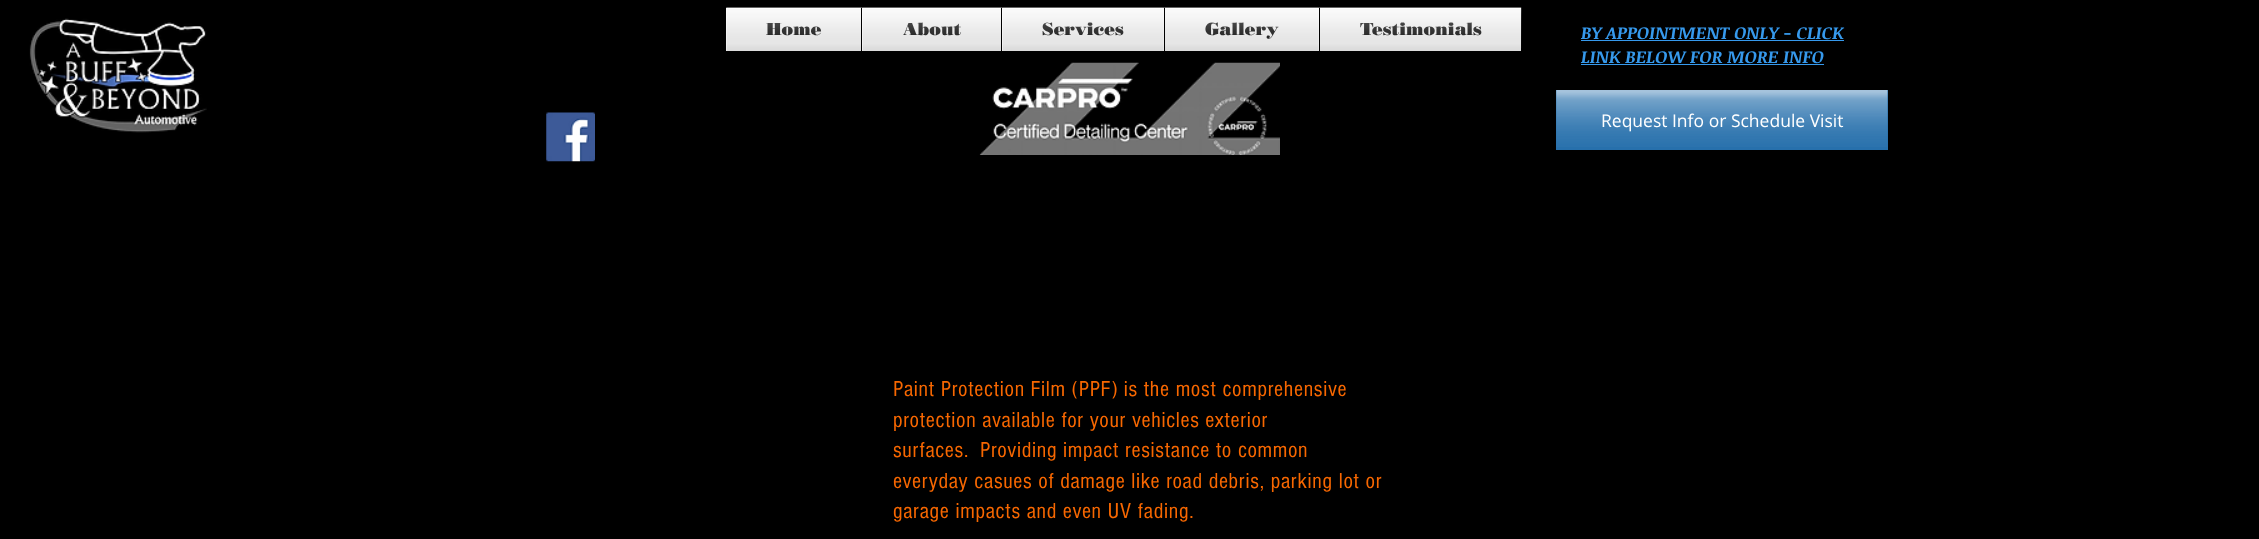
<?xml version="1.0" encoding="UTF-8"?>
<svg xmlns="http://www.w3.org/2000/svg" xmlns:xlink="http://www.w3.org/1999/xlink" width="2259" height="539">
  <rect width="100%" height="100%" fill="#000000" />
  <image x="29" y="18" width="178" height="115" xlink:href="image1.png" />
  <image x="726" y="7" width="796" height="41" xlink:href="image2.png" />
  <rect x="726" y="8" width="135" height="43" fill="#ffffff" />
  <rect x="862" y="8" width="139" height="43" fill="#ffffff" />
  <rect x="1002" y="8" width="162" height="43" fill="#ffffff" />
  <rect x="1165" y="8" width="154" height="43" fill="#ffffff" />
  <rect x="1164" y="8" width="1" height="43" fill="#000000" />
  <rect x="1320" y="8" width="201" height="43" fill="#ffffff" />
  <rect x="1319" y="8" width="1" height="43" fill="#000000" />
  <rect x="1581" y="40" width="263" height="1" fill="#3699ec" />
  <rect x="1581" y="64" width="243" height="1" fill="#3699ec" />
  <image x="546" y="112" width="49" height="50" xlink:href="image13.png" />
  <image x="979" y="62" width="301" height="93" xlink:href="image14.png" />
  <rect x="1556" y="90" width="332" height="60" fill="#2770ac" />
  <image x="1556" y="90" width="332" height="57" xlink:href="image15.png" />
  <text x="766" y="35" style="font-family: 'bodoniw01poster'; font-size: 17.5px; font-weight: 900; fill: #000000">Home</text>
  <image x="726" y="7" width="136" height="29" xlink:href="image3.png" />
  <image x="726" y="9" width="135" height="42" xlink:href="image4.png" />
  <rect x="861" y="8" width="1" height="43" fill="#000000" />
  <text x="903" y="35" style="font-family: 'bodoniw01poster'; font-size: 17.5px; font-weight: 900; fill: #000000">About</text>
  <image x="862" y="7" width="140" height="29" xlink:href="image5.png" />
  <image x="862" y="9" width="139" height="42" xlink:href="image6.png" />
  <rect x="1001" y="8" width="1" height="43" fill="#000000" />
  <text x="1042" y="35" style="font-family: 'bodoniw01poster'; font-size: 17.5px; font-weight: 900; fill: #000000">Services</text>
  <image x="1002" y="7" width="162" height="29" xlink:href="image7.png" />
  <image x="1002" y="9" width="162" height="42" xlink:href="image8.png" />
  <text x="1205" y="35" style="font-family: 'bodoniw01poster'; font-size: 17.5px; font-weight: 900; fill: #000000">Gallery</text>
  <image x="1165" y="7" width="154" height="32" xlink:href="image9.png" />
  <image x="1165" y="9" width="154" height="42" xlink:href="image10.png" />
  <text x="1360" y="35" style="font-family: 'bodoniw01poster'; font-size: 17.5px; font-weight: 900; fill: #000000">Testimonials</text>
  <image x="1320" y="7" width="202" height="29" xlink:href="image11.png" />
  <image x="1320" y="9" width="201" height="42" xlink:href="image12.png" />
  <text x="1581" y="39" style="font-family: Noticia Text; font-size: 17.5px; font-weight: bold; font-style: italic; fill: #3699ec">BY APPOINTMENT ONLY - CLICK</text>
  <text x="1581" y="63" style="font-family: Noticia Text; font-size: 17.5px; font-weight: bold; font-style: italic; fill: #3699ec">LINK BELOW FOR MORE INFO</text>
  <text x="1601" y="127" style="font-family: Open Sans; font-size: 17.5px; fill: #ffffff">Request Info or Schedule Visit</text>
  <text x="893" y="396" style="font-family: 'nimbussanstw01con'; font-size: 22.5px; letter-spacing: 0.68px; fill: #f76700">Paint Protection Film (PPF) is the most comprehensive</text>
  <text x="893" y="427" style="font-family: 'nimbussanstw01con'; font-size: 22.5px; letter-spacing: 0.68px; fill: #f76700">protection available for your vehicles exterior</text>
  <text x="893" y="457" style="font-family: 'nimbussanstw01con'; font-size: 22.5px; letter-spacing: 0.68px; fill: #f76700">surfaces.</text>
  <text x="980" y="457" style="font-family: 'nimbussanstw01con'; font-size: 22.5px; letter-spacing: 0.68px; fill: #f76700">Providing impact resistance to common</text>
  <text x="893" y="488" style="font-family: 'nimbussanstw01con'; font-size: 22.5px; letter-spacing: 0.68px; fill: #f76700">everyday casues of damage like road debris, parking lot or</text>
  <text x="893" y="518" style="font-family: 'nimbussanstw01con'; font-size: 22.5px; letter-spacing: 0.68px; fill: #f76700">garage impacts and even UV fading.</text>
</svg>
